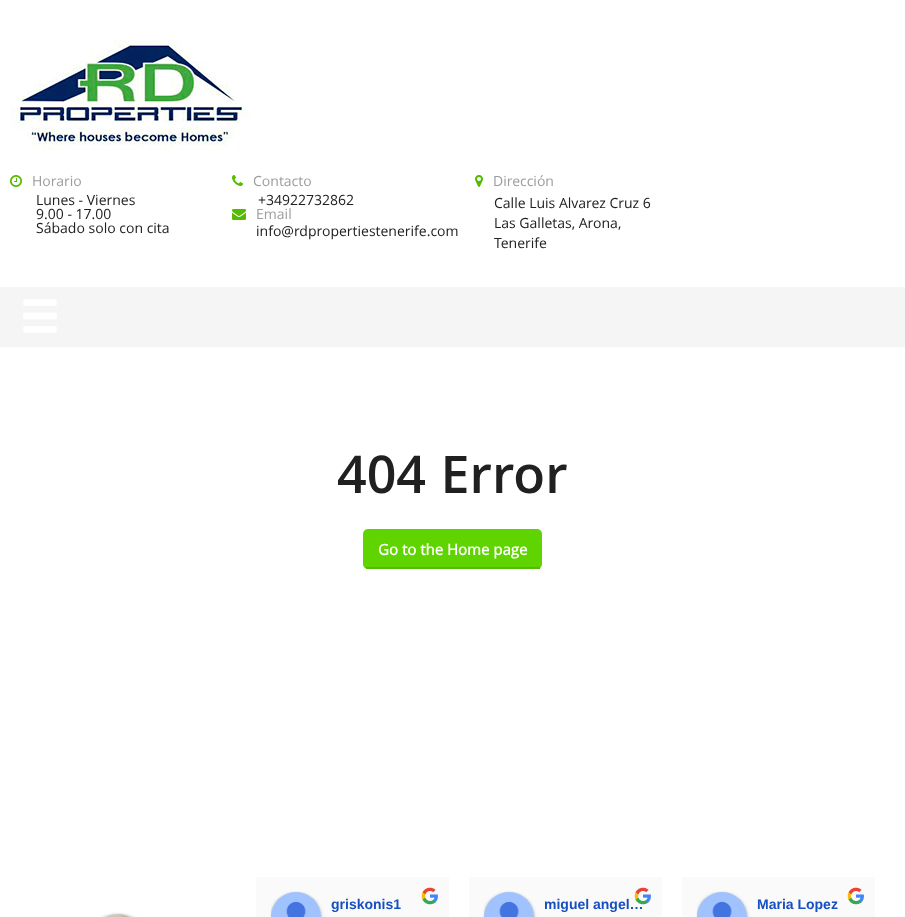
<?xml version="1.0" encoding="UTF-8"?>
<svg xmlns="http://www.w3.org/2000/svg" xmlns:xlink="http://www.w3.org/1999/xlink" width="905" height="917">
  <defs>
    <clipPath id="clip1"><rect x="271" y="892" width="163" height="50" /></clipPath>
    <clipPath id="clip2"><rect x="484" y="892" width="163" height="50" /></clipPath>
    <clipPath id="clip3"><rect x="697" y="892" width="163" height="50" /></clipPath>
  </defs>
  <rect width="100%" height="100%" fill="#ffffff" />
  <image x="11" y="39" width="240" height="111" xlink:href="image1.png" />
  <image x="10" y="175" width="12" height="12" xlink:href="image2.png" />
  <image x="232" y="175" width="11" height="11" xlink:href="image3.png" />
  <image x="232" y="209" width="14" height="11" xlink:href="image4.png" />
  <image x="475" y="175" width="8" height="12" xlink:href="image5.png" />
  <rect y="287" width="905" height="60" fill="#f5f5f5" />
  <image x="23" y="299" width="34" height="34" xlink:href="image6.png" />
  <rect x="363" y="529" width="179" height="40" rx="5" fill="#5fd400" />
  <rect x="366" y="567" width="174" height="2" fill="#54bb00" />
  <rect x="256" y="877" width="193" height="40" fill="#fafafa" />
  <g clip-path="url(#clip1)">
    <rect x="271" y="894" width="50" height="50" rx="25" fill="#000000" fill-opacity="0.24" filter="blur(2px)" />
  </g>
  <rect x="271" y="892" width="50" height="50" rx="25" fill="#000000" fill-opacity="0.12" filter="blur(1px)" />
  <image x="271" y="892" width="50" height="25" xlink:href="image7.png" />
  <image x="421" y="887" width="17" height="18" xlink:href="image8.png" />
  <rect x="469" y="877" width="193" height="40" fill="#fafafa" />
  <g clip-path="url(#clip2)">
    <rect x="484" y="894" width="50" height="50" rx="25" fill="#000000" fill-opacity="0.24" filter="blur(2px)" />
  </g>
  <rect x="484" y="892" width="50" height="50" rx="25" fill="#000000" fill-opacity="0.12" filter="blur(1px)" />
  <image x="484" y="892" width="50" height="25" xlink:href="image7.png" />
  <rect x="682" y="877" width="193" height="40" fill="#fafafa" />
  <g clip-path="url(#clip3)">
    <rect x="697" y="894" width="50" height="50" rx="25" fill="#000000" fill-opacity="0.24" filter="blur(2px)" />
  </g>
  <rect x="697" y="892" width="50" height="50" rx="25" fill="#000000" fill-opacity="0.12" filter="blur(1px)" />
  <image x="697" y="892" width="50" height="25" xlink:href="image7.png" />
  <image x="847" y="887" width="17" height="18" xlink:href="image8.png" />
  <rect x="93" y="916" width="50" height="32" rx="25" fill="#000000" fill-opacity="0.24" filter="blur(2px)" />
  <rect x="93" y="914" width="50" height="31" rx="25" fill="#000000" fill-opacity="0.12" filter="blur(1px)" />
  <image x="107" y="914" width="22" height="3" xlink:href="image9.png" />
  <text x="32" y="186" style="font-family: Open Sans; font-size: 14px; fill: #9c9c9c">Horario</text>
  <text x="36" y="205" style="font-family: Open Sans; font-size: 14px; fill: #202020">Lunes - Viernes</text>
  <text x="36" y="219" style="font-family: Open Sans; font-size: 14px; fill: #202020">9.00 - 17.00</text>
  <text x="36" y="233" style="font-family: Open Sans; font-size: 14px; fill: #202020">Sábado solo con cita</text>
  <text x="253" y="186" style="font-family: Open Sans; font-size: 14px; fill: #9c9c9c">Contacto</text>
  <text x="258" y="205" style="font-family: Open Sans; font-size: 14px; fill: #202020">+34922732862</text>
  <text x="256" y="219" style="font-family: Open Sans; font-size: 14px; fill: #9c9c9c">Email</text>
  <text x="256" y="236" style="font-family: Open Sans; font-size: 14px; fill: #202020">info@rdpropertiestenerife.com</text>
  <text x="493" y="186" style="font-family: Open Sans; font-size: 14px; fill: #9c9c9c">Dirección</text>
  <text x="494" y="208" style="font-family: Open Sans; font-size: 14px; fill: #202020">Calle Luis Alvarez Cruz 6</text>
  <text x="494" y="228" style="font-family: Open Sans; font-size: 14px; fill: #202020">Las Galletas, Arona,</text>
  <text x="494" y="248" style="font-family: Open Sans; font-size: 14px; fill: #202020">Tenerife</text>
  <text x="337" y="493" word-spacing="1" style="font-family: Open Sans; font-size: 52px; font-weight: 600; fill: #202020">404 Error</text>
  <text x="378" y="555" style="font-family: Open Sans; font-size: 15px; font-weight: bold; fill: #ffffff">Go to the Home page</text>
  <text x="331" y="909" style="font-family: Liberation Sans; font-size: 14px; font-weight: bold; fill: #154fc1">griskonis1</text>
  <text x="544" y="909" style="font-family: Liberation Sans; font-size: 14px; font-weight: bold; fill: #154fc1">miguel angel…</text>
  <image x="634" y="887" width="17" height="18" xlink:href="image8.png" />
  <text x="757" y="909" style="font-family: Liberation Sans; font-size: 14px; font-weight: bold; fill: #154fc1">Maria Lopez</text>
</svg>
